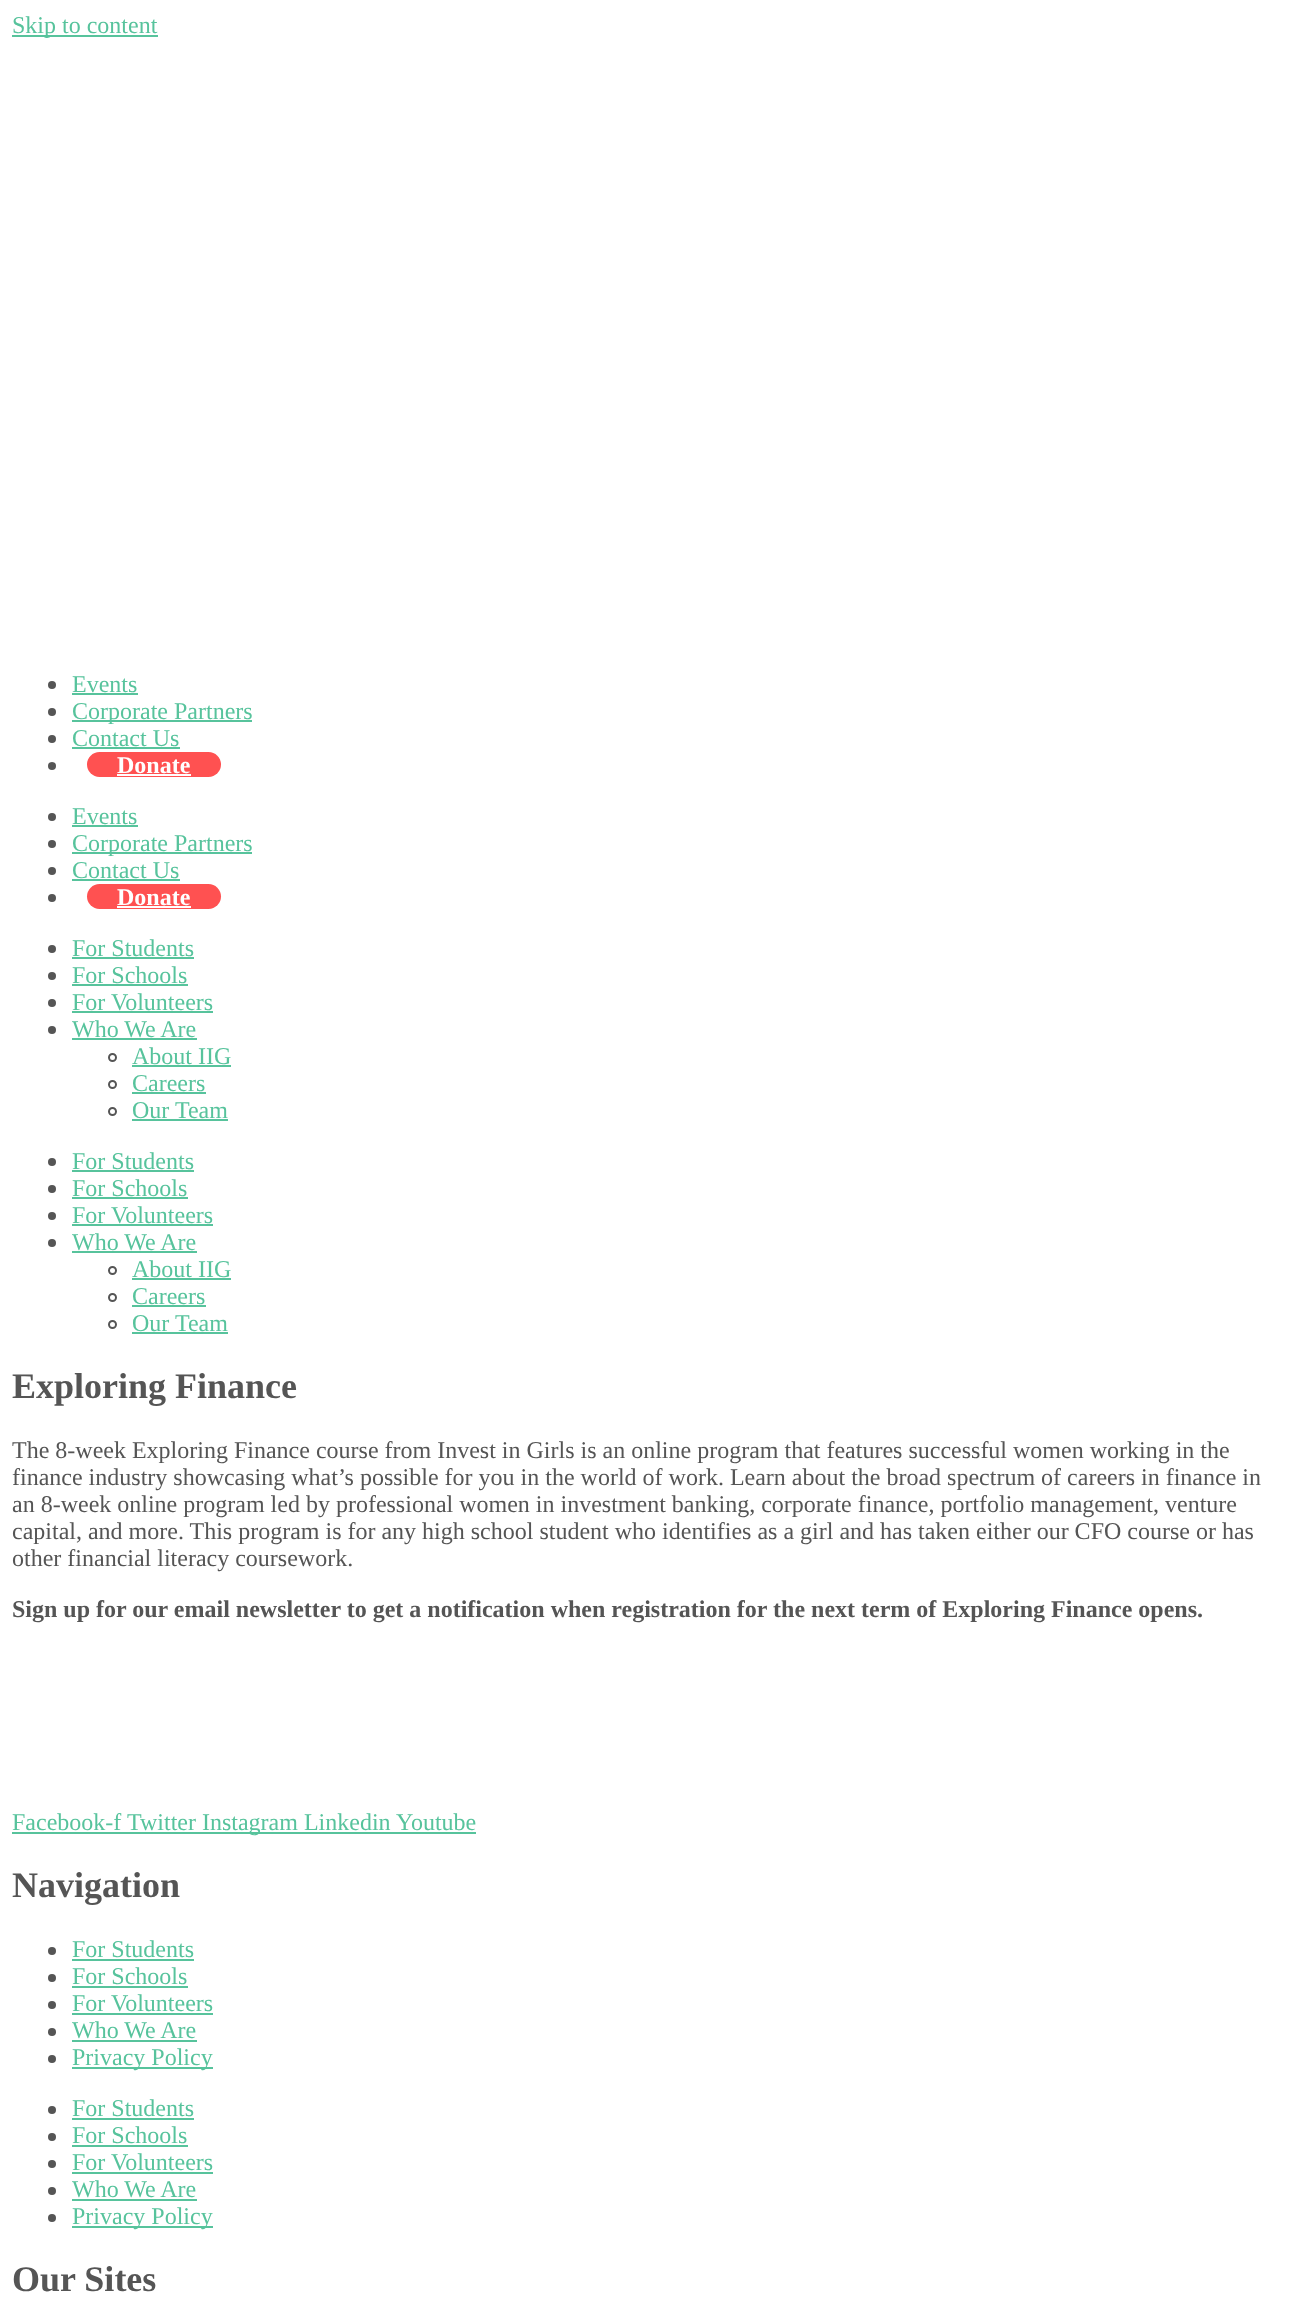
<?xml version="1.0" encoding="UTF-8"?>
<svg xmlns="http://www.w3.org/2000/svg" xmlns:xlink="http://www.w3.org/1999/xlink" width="1299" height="2300">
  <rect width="100%" height="100%" fill="#ffffff" />
  <rect x="12" y="35" width="146" height="2" fill="#57c39c" />
  <circle cx="52" cy="685" r="4" fill="#555555" />
  <rect x="72" y="693" width="66" height="2" fill="#57c39c" />
  <circle cx="52" cy="712" r="4" fill="#555555" />
  <rect x="72" y="720" width="180" height="2" fill="#57c39c" />
  <circle cx="52" cy="739" r="4" fill="#555555" />
  <rect x="72" y="747" width="108" height="2" fill="#57c39c" />
  <circle cx="52" cy="766" r="4" fill="#555555" />
  <rect x="87" y="752" width="134" height="25" rx="12.5" fill="#ff5151" />
  <rect x="117" y="774" width="74" height="2" fill="#ffffff" />
  <circle cx="52" cy="817" r="4" fill="#555555" />
  <rect x="72" y="825" width="66" height="2" fill="#57c39c" />
  <circle cx="52" cy="844" r="4" fill="#555555" />
  <rect x="72" y="852" width="180" height="2" fill="#57c39c" />
  <circle cx="52" cy="871" r="4" fill="#555555" />
  <rect x="72" y="879" width="108" height="2" fill="#57c39c" />
  <circle cx="52" cy="898" r="4" fill="#555555" />
  <rect x="87" y="884" width="134" height="25" rx="12.5" fill="#ff5151" />
  <rect x="117" y="906" width="74" height="2" fill="#ffffff" />
  <circle cx="52" cy="949" r="4" fill="#555555" />
  <rect x="72" y="957" width="122" height="2" fill="#57c39c" />
  <circle cx="52" cy="976" r="4" fill="#555555" />
  <rect x="72" y="984" width="116" height="2" fill="#57c39c" />
  <circle cx="52" cy="1003" r="4" fill="#555555" />
  <rect x="72" y="1011" width="141" height="2" fill="#57c39c" />
  <circle cx="52" cy="1030" r="4" fill="#555555" />
  <rect x="72" y="1038" width="125" height="2" fill="#57c39c" />
  <circle cx="112.5" cy="1057.5" r="3.5" fill="none" stroke="#555555" stroke-width="2" />
  <rect x="132" y="1065" width="99" height="2" fill="#57c39c" />
  <circle cx="112.5" cy="1084.5" r="3.5" fill="none" stroke="#555555" stroke-width="2" />
  <rect x="132" y="1092" width="74" height="2" fill="#57c39c" />
  <circle cx="112.5" cy="1111.5" r="3.5" fill="none" stroke="#555555" stroke-width="2" />
  <rect x="132" y="1119" width="96" height="2" fill="#57c39c" />
  <circle cx="52" cy="1162" r="4" fill="#555555" />
  <rect x="72" y="1170" width="122" height="2" fill="#57c39c" />
  <circle cx="52" cy="1189" r="4" fill="#555555" />
  <rect x="72" y="1197" width="116" height="2" fill="#57c39c" />
  <circle cx="52" cy="1216" r="4" fill="#555555" />
  <rect x="72" y="1224" width="141" height="2" fill="#57c39c" />
  <circle cx="52" cy="1243" r="4" fill="#555555" />
  <rect x="72" y="1251" width="125" height="2" fill="#57c39c" />
  <circle cx="112.5" cy="1270.5" r="3.5" fill="none" stroke="#555555" stroke-width="2" />
  <rect x="132" y="1278" width="99" height="2" fill="#57c39c" />
  <circle cx="112.5" cy="1297.5" r="3.5" fill="none" stroke="#555555" stroke-width="2" />
  <rect x="132" y="1305" width="74" height="2" fill="#57c39c" />
  <circle cx="112.5" cy="1324.5" r="3.5" fill="none" stroke="#555555" stroke-width="2" />
  <rect x="132" y="1332" width="96" height="2" fill="#57c39c" />
  <rect x="12" y="1832" width="378" height="2" fill="#57c39c" />
  <rect x="390" y="1832" width="86" height="2" fill="#57c39c" />
  <circle cx="52" cy="1951" r="4" fill="#555555" />
  <rect x="72" y="1959" width="122" height="2" fill="#57c39c" />
  <circle cx="52" cy="1978" r="4" fill="#555555" />
  <rect x="72" y="1986" width="116" height="2" fill="#57c39c" />
  <circle cx="52" cy="2005" r="4" fill="#555555" />
  <rect x="72" y="2013" width="141" height="2" fill="#57c39c" />
  <circle cx="52" cy="2032" r="4" fill="#555555" />
  <rect x="72" y="2040" width="125" height="2" fill="#57c39c" />
  <circle cx="52" cy="2059" r="4" fill="#555555" />
  <rect x="72" y="2067" width="141" height="2" fill="#57c39c" />
  <circle cx="52" cy="2110" r="4" fill="#555555" />
  <rect x="72" y="2118" width="122" height="2" fill="#57c39c" />
  <circle cx="52" cy="2137" r="4" fill="#555555" />
  <rect x="72" y="2145" width="116" height="2" fill="#57c39c" />
  <circle cx="52" cy="2164" r="4" fill="#555555" />
  <rect x="72" y="2172" width="141" height="2" fill="#57c39c" />
  <circle cx="52" cy="2191" r="4" fill="#555555" />
  <rect x="72" y="2199" width="125" height="2" fill="#57c39c" />
  <circle cx="52" cy="2218" r="4" fill="#555555" />
  <rect x="72" y="2226" width="141" height="2" fill="#57c39c" />
  <text x="12" y="33" style="font-family: Liberation Serif; font-size: 24px; fill: #57c39c">Skip to content</text>
  <text x="72" y="692" style="font-family: Liberation Serif; font-size: 24px; fill: #57c39c">Events</text>
  <text x="72" y="719" style="font-family: Liberation Serif; font-size: 24px; fill: #57c39c">Corporate Partners</text>
  <text x="72" y="746" style="font-family: Liberation Serif; font-size: 24px; fill: #57c39c">Contact Us</text>
  <text x="117" y="773" style="font-family: Liberation Serif; font-size: 24px; font-weight: bold; fill: #ffffff">Donate</text>
  <text x="72" y="824" style="font-family: Liberation Serif; font-size: 24px; fill: #57c39c">Events</text>
  <text x="72" y="851" style="font-family: Liberation Serif; font-size: 24px; fill: #57c39c">Corporate Partners</text>
  <text x="72" y="878" style="font-family: Liberation Serif; font-size: 24px; fill: #57c39c">Contact Us</text>
  <text x="117" y="905" style="font-family: Liberation Serif; font-size: 24px; font-weight: bold; fill: #ffffff">Donate</text>
  <text x="72" y="956" style="font-family: Liberation Serif; font-size: 24px; fill: #57c39c">For Students</text>
  <text x="72" y="983" style="font-family: Liberation Serif; font-size: 24px; fill: #57c39c">For Schools</text>
  <text x="72" y="1010" style="font-family: Liberation Serif; font-size: 24px; fill: #57c39c">For Volunteers</text>
  <text x="72" y="1037" style="font-family: Liberation Serif; font-size: 24px; fill: #57c39c">Who We Are</text>
  <text x="132" y="1064" style="font-family: Liberation Serif; font-size: 24px; fill: #57c39c">About IIG</text>
  <text x="132" y="1091" style="font-family: Liberation Serif; font-size: 24px; fill: #57c39c">Careers</text>
  <text x="132" y="1118" style="font-family: Liberation Serif; font-size: 24px; fill: #57c39c">Our Team</text>
  <text x="72" y="1169" style="font-family: Liberation Serif; font-size: 24px; fill: #57c39c">For Students</text>
  <text x="72" y="1196" style="font-family: Liberation Serif; font-size: 24px; fill: #57c39c">For Schools</text>
  <text x="72" y="1223" style="font-family: Liberation Serif; font-size: 24px; fill: #57c39c">For Volunteers</text>
  <text x="72" y="1250" style="font-family: Liberation Serif; font-size: 24px; fill: #57c39c">Who We Are</text>
  <text x="132" y="1277" style="font-family: Liberation Serif; font-size: 24px; fill: #57c39c">About IIG</text>
  <text x="132" y="1304" style="font-family: Liberation Serif; font-size: 24px; fill: #57c39c">Careers</text>
  <text x="132" y="1331" style="font-family: Liberation Serif; font-size: 24px; fill: #57c39c">Our Team</text>
  <text x="12" y="1398" style="font-family: Liberation Serif; font-size: 36px; font-weight: bold; fill: #555555">Exploring Finance</text>
  <text x="12" y="1458" style="font-family: Liberation Serif; font-size: 24px; fill: #555555">The 8-week Exploring Finance course from Invest in Girls is an online program that features successful women working in the</text>
  <text x="12" y="1485" style="font-family: Liberation Serif; font-size: 24px; fill: #555555">finance industry showcasing what’s possible for you in the world of work. Learn about the broad spectrum of careers in finance in</text>
  <text x="12" y="1512" style="font-family: Liberation Serif; font-size: 24px; fill: #555555">an 8-week online program led by professional women in investment banking, corporate finance, portfolio management, venture</text>
  <text x="12" y="1539" style="font-family: Liberation Serif; font-size: 24px; fill: #555555">capital, and more. This program is for any high school student who identifies as a girl and has taken either our CFO course or has</text>
  <text x="12" y="1566" style="font-family: Liberation Serif; font-size: 24px; fill: #555555">other financial literacy coursework.</text>
  <text x="12" y="1617" style="font-family: Liberation Serif; font-size: 24px; font-weight: bold; fill: #555555">Sign up for our email newsletter to get a notification when registration for the next term of Exploring Finance opens.</text>
  <text x="12" y="1830" style="font-family: Liberation Serif; font-size: 24px; fill: #57c39c">Facebook-f</text>
  <text x="127" y="1830" style="font-family: Liberation Serif; font-size: 24px; fill: #57c39c">Twitter Instagram Linkedin</text>
  <text x="396" y="1830" style="font-family: Liberation Serif; font-size: 24px; fill: #57c39c">Youtube</text>
  <text x="12" y="1897" style="font-family: Liberation Serif; font-size: 36px; font-weight: bold; fill: #555555">Navigation</text>
  <text x="72" y="1957" style="font-family: Liberation Serif; font-size: 24px; fill: #57c39c">For Students</text>
  <text x="72" y="1984" style="font-family: Liberation Serif; font-size: 24px; fill: #57c39c">For Schools</text>
  <text x="72" y="2011" style="font-family: Liberation Serif; font-size: 24px; fill: #57c39c">For Volunteers</text>
  <text x="72" y="2038" style="font-family: Liberation Serif; font-size: 24px; fill: #57c39c">Who We Are</text>
  <text x="72" y="2065" style="font-family: Liberation Serif; font-size: 24px; fill: #57c39c">Privacy Policy</text>
  <text x="72" y="2116" style="font-family: Liberation Serif; font-size: 24px; fill: #57c39c">For Students</text>
  <text x="72" y="2143" style="font-family: Liberation Serif; font-size: 24px; fill: #57c39c">For Schools</text>
  <text x="72" y="2170" style="font-family: Liberation Serif; font-size: 24px; fill: #57c39c">For Volunteers</text>
  <text x="72" y="2197" style="font-family: Liberation Serif; font-size: 24px; fill: #57c39c">Who We Are</text>
  <text x="72" y="2224" style="font-family: Liberation Serif; font-size: 24px; fill: #57c39c">Privacy Policy</text>
  <text x="12" y="2291" style="font-family: Liberation Serif; font-size: 36px; font-weight: bold; fill: #555555">Our Sites</text>
</svg>
